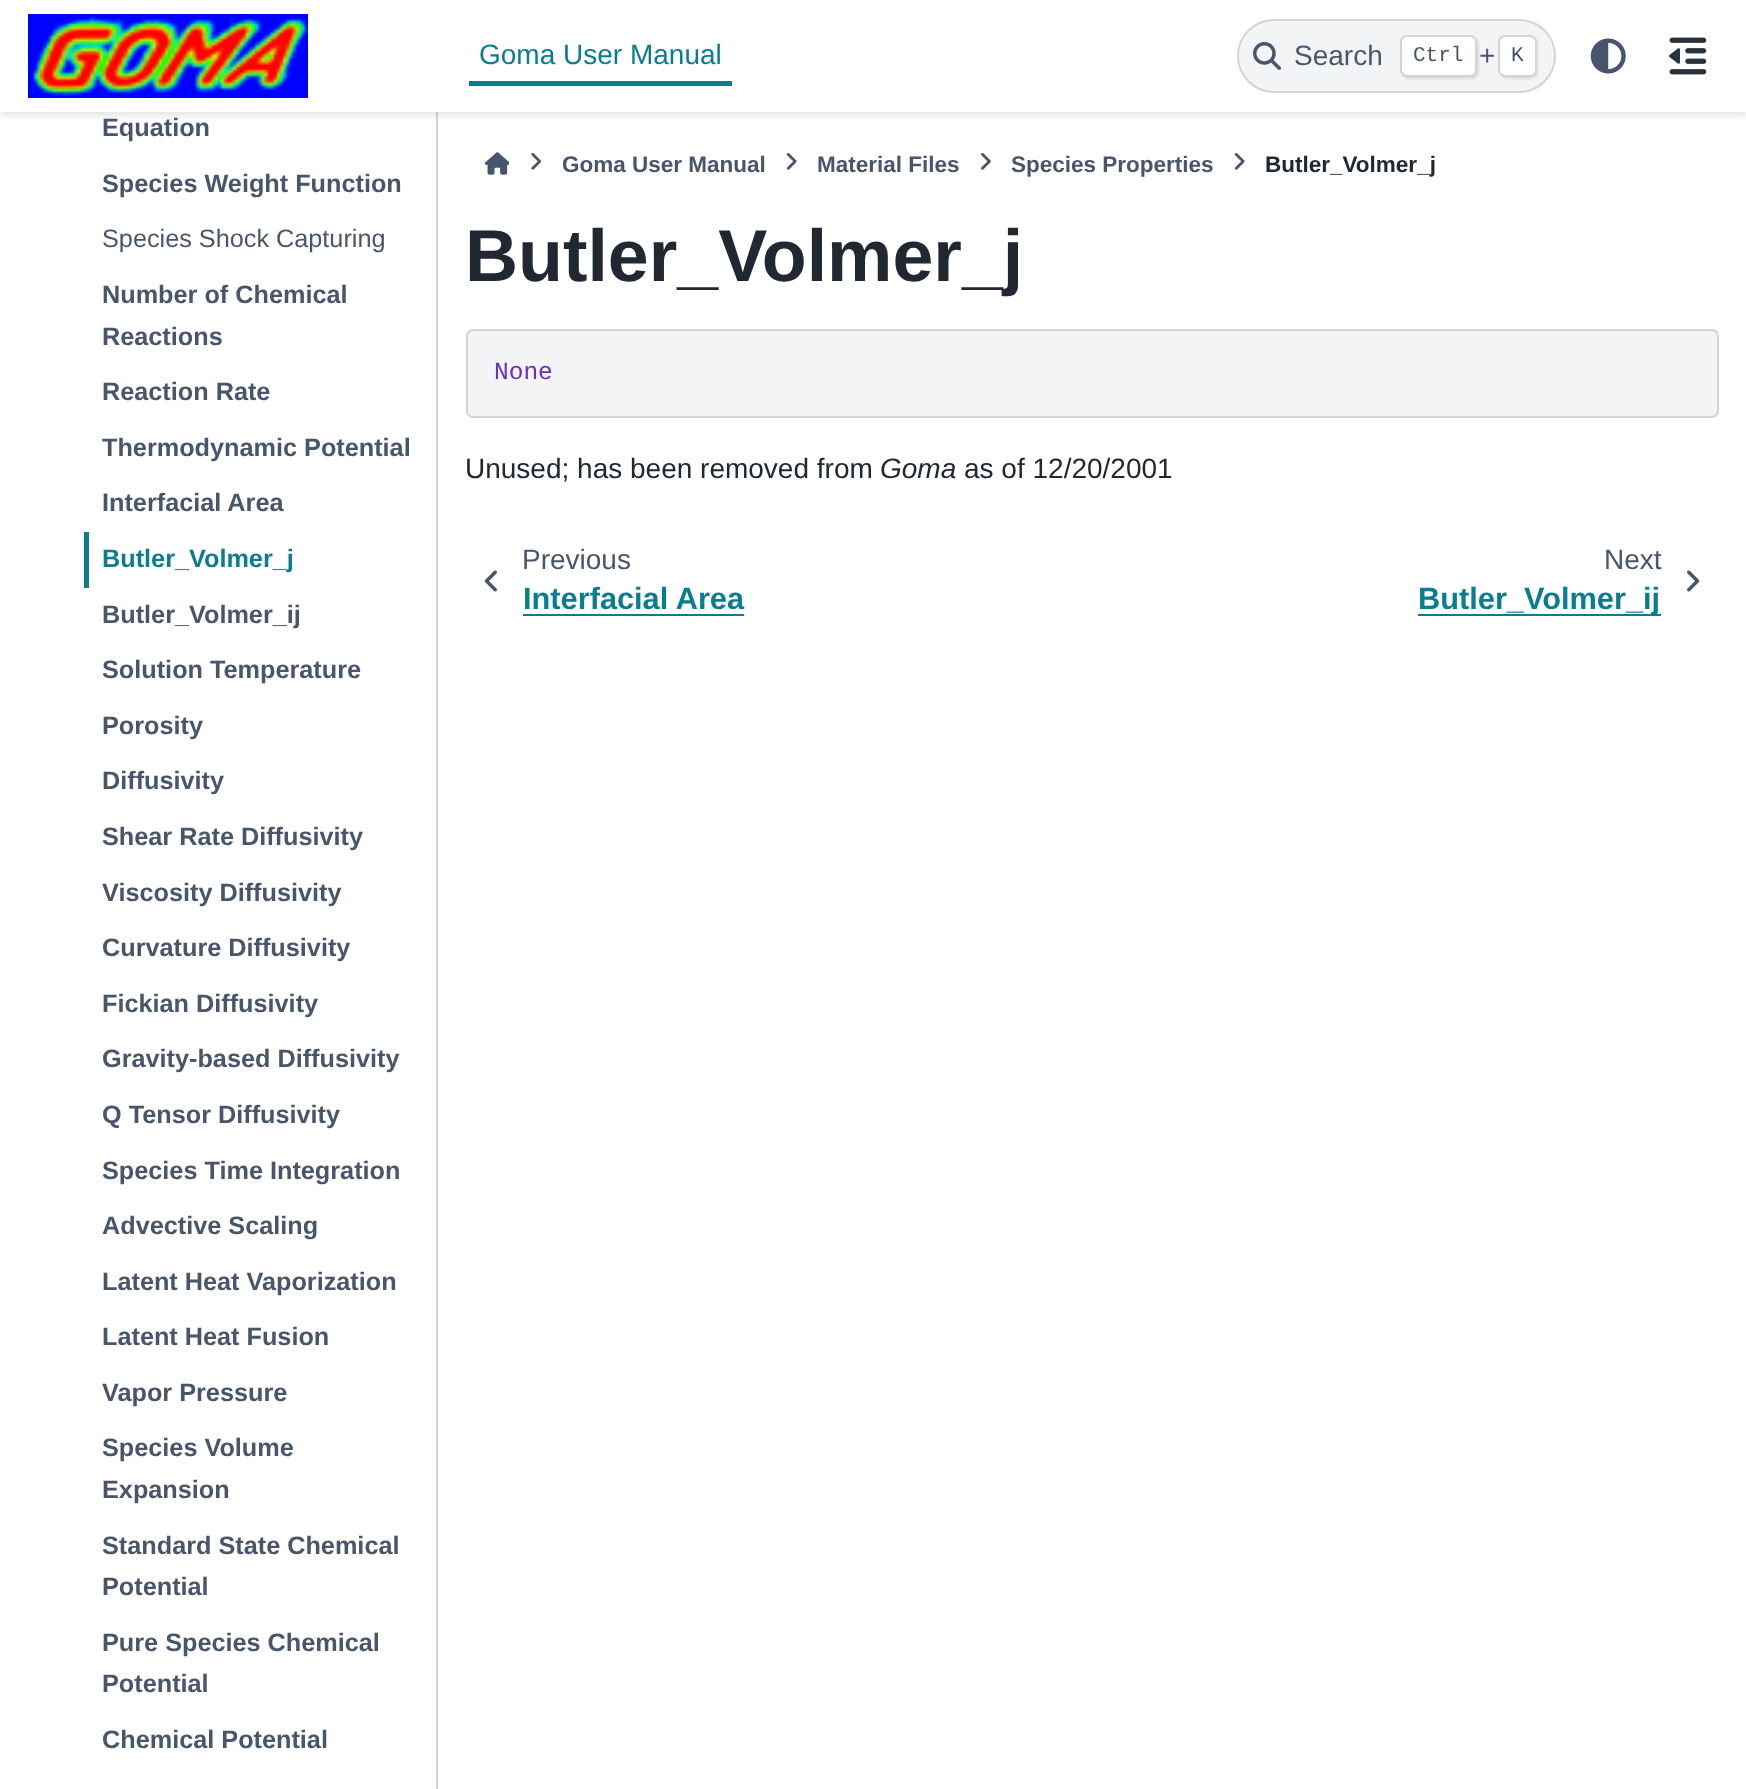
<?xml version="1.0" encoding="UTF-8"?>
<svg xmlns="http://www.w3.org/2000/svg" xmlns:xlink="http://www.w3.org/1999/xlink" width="1746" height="1789">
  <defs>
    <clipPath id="clip1"><rect x="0" y="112" width="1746" height="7" /></clipPath>
  </defs>
  <rect width="100%" height="100%" fill="#ffffff" />
  <rect x="436" y="112" width="2" height="1677" fill="#d1d5da" />
  <g clip-path="url(#clip1)">
    <rect y="4" width="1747" height="112" fill="#000000" fill-opacity="0.1" filter="blur(3.5px)" />
  </g>
  <image x="28" y="14" width="280" height="84" xlink:href="image1.png" />
  <rect x="469" y="81" width="263" height="5" fill="#0a7d91" />
  <rect x="1238" y="20" width="317" height="72" rx="36" fill="#f3f4f5" stroke="#d1d5da" stroke-width="2" />
  <image x="1253" y="42" width="28" height="28" xlink:href="image2.png" />
  <rect x="1402" y="37" width="77" height="42" rx="7" fill="#000000" fill-opacity="0.1" filter="blur(1px)" />
  <rect x="1401" y="36" width="75" height="40" rx="6" fill="#ffffff" stroke="#d1d5da" stroke-width="2" />
  <rect x="1500" y="37" width="38" height="42" rx="7" fill="#000000" fill-opacity="0.1" filter="blur(1px)" />
  <rect x="1499" y="36" width="37" height="40" rx="6" fill="#ffffff" stroke="#d1d5da" stroke-width="2" />
  <image x="1590" y="38" width="36" height="36" xlink:href="image3.png" />
  <image x="1669" y="37" width="38" height="38" xlink:href="image4.png" />
  <rect x="84" y="532" width="5" height="56" fill="#0a7d91" />
  <image x="485" y="152" width="24" height="23" xlink:href="image5.png" />
  <image x="531" y="153" width="11" height="17" xlink:href="image6.png" />
  <image x="786" y="153" width="11" height="17" xlink:href="image7.png" />
  <image x="981" y="153" width="10" height="17" xlink:href="image8.png" />
  <image x="1234" y="153" width="11" height="17" xlink:href="image7.png" />
  <rect x="467" y="330" width="1251" height="87" rx="6" fill="#f3f4f5" stroke="#d1d5da" stroke-width="2" />
  <image x="484" y="570" width="13" height="22" xlink:href="image9.png" />
  <rect x="523" y="614" width="221" height="2" fill="#0a7d91" />
  <rect x="1418" y="614" width="243" height="2" fill="#0a7d91" />
  <image x="1687" y="570" width="13" height="22" xlink:href="image10.png" />
  <text x="479" y="64" style="font-family: Liberation Sans; font-size: 28px; fill: #0a7d91">Goma User Manual</text>
  <text x="1294" y="65" style="font-family: Liberation Sans; font-size: 28px; fill: #48566b">Search</text>
  <text x="1413" y="61" style="font-family: Liberation Mono; font-size: 21px; fill: #48566b">Ctrl</text>
  <text x="1479" y="65" style="font-family: Liberation Sans; font-size: 28px; fill: #48566b">+</text>
  <text x="1511" y="61" style="font-family: Liberation Mono; font-size: 21px; fill: #48566b">K</text>
  <text x="102" y="136" style="font-family: Liberation Sans; font-size: 25.25px; font-weight: bold; fill: #48566b">Equation</text>
  <text x="102" y="192" style="font-family: Liberation Sans; font-size: 25.25px; font-weight: bold; fill: #48566b">Species Weight Function</text>
  <text x="102" y="247" style="font-family: Liberation Sans; font-size: 25.25px; fill: #48566b">Species Shock Capturing</text>
  <text x="102" y="303" style="font-family: Liberation Sans; font-size: 25.25px; font-weight: bold; fill: #48566b">Number of Chemical</text>
  <text x="102" y="345" style="font-family: Liberation Sans; font-size: 25.25px; font-weight: bold; fill: #48566b">Reactions</text>
  <text x="102" y="400" style="font-family: Liberation Sans; font-size: 25.25px; font-weight: bold; fill: #48566b">Reaction Rate</text>
  <text x="102" y="456" style="font-family: Liberation Sans; font-size: 25.25px; font-weight: bold; fill: #48566b">Thermodynamic Potential</text>
  <text x="102" y="511" style="font-family: Liberation Sans; font-size: 25.25px; font-weight: bold; fill: #48566b">Interfacial Area</text>
  <text x="102" y="567" style="font-family: Liberation Sans; font-size: 25.25px; font-weight: bold; fill: #0a7d91">Butler_Volmer_j</text>
  <text x="102" y="623" style="font-family: Liberation Sans; font-size: 25.25px; font-weight: bold; fill: #48566b">Butler_Volmer_ij</text>
  <text x="102" y="678" style="font-family: Liberation Sans; font-size: 25.25px; font-weight: bold; fill: #48566b">Solution Temperature</text>
  <text x="102" y="734" style="font-family: Liberation Sans; font-size: 25.25px; font-weight: bold; fill: #48566b">Porosity</text>
  <text x="102" y="789" style="font-family: Liberation Sans; font-size: 25.25px; font-weight: bold; fill: #48566b">Diffusivity</text>
  <text x="102" y="845" style="font-family: Liberation Sans; font-size: 25.25px; font-weight: bold; fill: #48566b">Shear Rate Diffusivity</text>
  <text x="102" y="901" style="font-family: Liberation Sans; font-size: 25.25px; font-weight: bold; fill: #48566b">Viscosity Diffusivity</text>
  <text x="102" y="956" style="font-family: Liberation Sans; font-size: 25.25px; font-weight: bold; fill: #48566b">Curvature Diffusivity</text>
  <text x="102" y="1012" style="font-family: Liberation Sans; font-size: 25.25px; font-weight: bold; fill: #48566b">Fickian Diffusivity</text>
  <text x="102" y="1067" style="font-family: Liberation Sans; font-size: 25.25px; font-weight: bold; fill: #48566b">Gravity-based Diffusivity</text>
  <text x="102" y="1123" style="font-family: Liberation Sans; font-size: 25.25px; font-weight: bold; fill: #48566b">Q Tensor Diffusivity</text>
  <text x="102" y="1179" style="font-family: Liberation Sans; font-size: 25.25px; font-weight: bold; fill: #48566b">Species Time Integration</text>
  <text x="102" y="1234" style="font-family: Liberation Sans; font-size: 25.25px; font-weight: bold; fill: #48566b">Advective Scaling</text>
  <text x="102" y="1290" style="font-family: Liberation Sans; font-size: 25.25px; font-weight: bold; fill: #48566b">Latent Heat Vaporization</text>
  <text x="102" y="1345" style="font-family: Liberation Sans; font-size: 25.25px; font-weight: bold; fill: #48566b">Latent Heat Fusion</text>
  <text x="102" y="1401" style="font-family: Liberation Sans; font-size: 25.25px; font-weight: bold; fill: #48566b">Vapor Pressure</text>
  <text x="102" y="1456" style="font-family: Liberation Sans; font-size: 25.25px; font-weight: bold; fill: #48566b">Species Volume</text>
  <text x="102" y="1498" style="font-family: Liberation Sans; font-size: 25.25px; font-weight: bold; fill: #48566b">Expansion</text>
  <text x="102" y="1554" style="font-family: Liberation Sans; font-size: 25.25px; font-weight: bold; fill: #48566b">Standard State Chemical</text>
  <text x="102" y="1595" style="font-family: Liberation Sans; font-size: 25.25px; font-weight: bold; fill: #48566b">Potential</text>
  <text x="102" y="1651" style="font-family: Liberation Sans; font-size: 25.25px; font-weight: bold; fill: #48566b">Pure Species Chemical</text>
  <text x="102" y="1692" style="font-family: Liberation Sans; font-size: 25.25px; font-weight: bold; fill: #48566b">Potential</text>
  <text x="102" y="1748" style="font-family: Liberation Sans; font-size: 25.25px; font-weight: bold; fill: #48566b">Chemical Potential</text>
  <text x="562" y="172" style="font-family: Liberation Sans; font-size: 22.5px; font-weight: bold; fill: #48566b">Goma User Manual</text>
  <text x="817" y="172" style="font-family: Liberation Sans; font-size: 22.5px; font-weight: bold; fill: #48566b">Material Files</text>
  <text x="1011" y="172" style="font-family: Liberation Sans; font-size: 22.5px; font-weight: bold; fill: #48566b">Species Properties</text>
  <text x="1265" y="172" style="font-family: Liberation Sans; font-size: 22.5px; font-weight: bold; fill: #222832">Butler_Volmer_j</text>
  <text x="465" y="281" style="font-family: Liberation Sans; font-size: 73.5px; font-weight: bold; fill: #222832">Butler_Volmer_j</text>
  <text x="494" y="379" style="font-family: Liberation Mono; font-size: 24.5px; fill: #6730c5">None</text>
  <text x="465" y="478" style="font-family: Liberation Sans; font-size: 28px; fill: #222832">Unused; has been removed from</text>
  <text x="880" y="478" style="font-family: Liberation Sans; font-size: 28px; font-style: italic; fill: #222832">Goma</text>
  <text x="964" y="478" style="font-family: Liberation Sans; font-size: 28px; fill: #222832">as of 12/20/2001</text>
  <text x="522" y="569" style="font-family: Liberation Sans; font-size: 28px; fill: #48566b">Previous</text>
  <text x="523" y="609" style="font-family: Liberation Sans; font-size: 30.75px; font-weight: bold; fill: #0a7d91">Interfacial Area</text>
  <text x="1604" y="569" style="font-family: Liberation Sans; font-size: 28px; fill: #48566b">Next</text>
  <text x="1418" y="609" style="font-family: Liberation Sans; font-size: 30.75px; font-weight: bold; fill: #0a7d91">Butler_Volmer_ij</text>
</svg>
